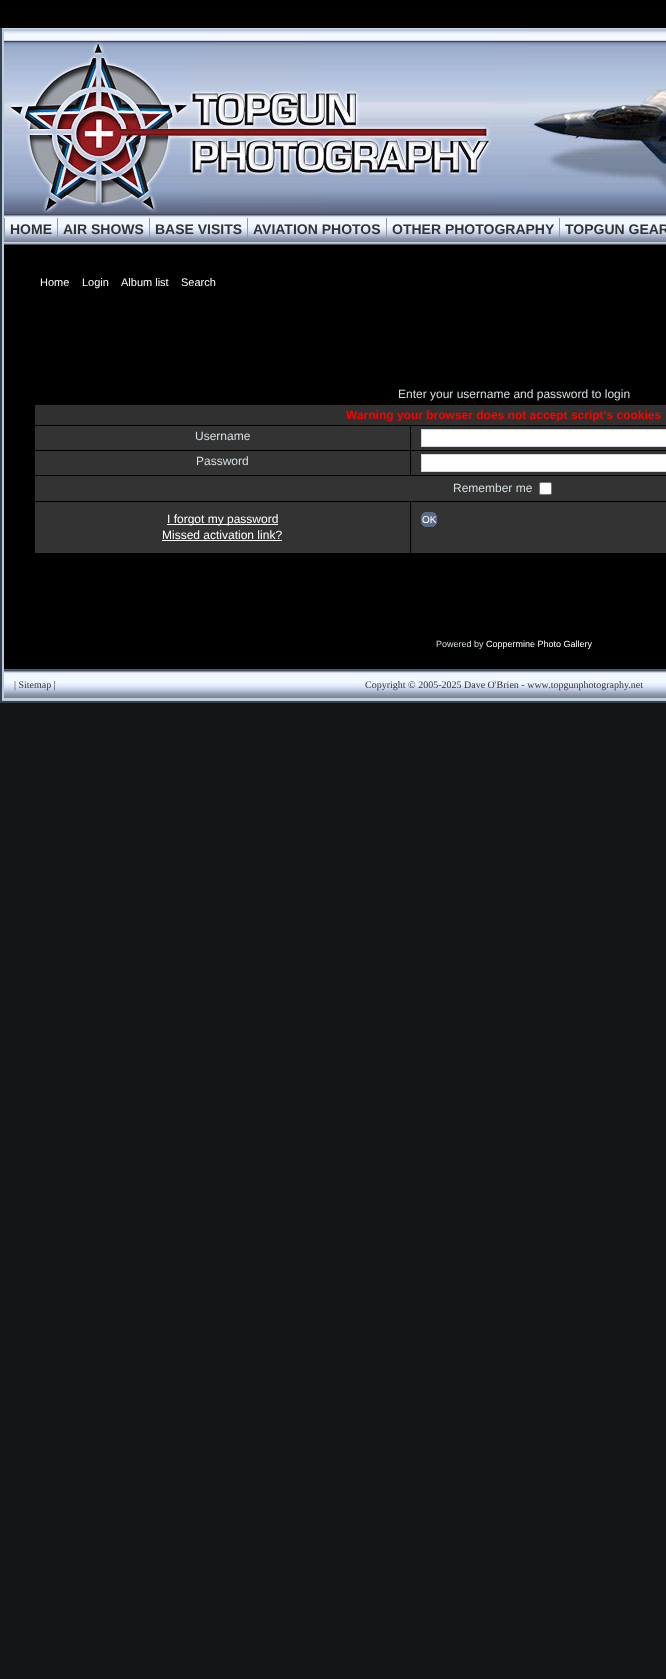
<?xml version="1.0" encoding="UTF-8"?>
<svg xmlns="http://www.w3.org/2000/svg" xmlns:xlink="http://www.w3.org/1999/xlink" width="666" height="1679">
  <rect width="100%" height="100%" fill="#131416" />
  <image x="0" y="0" width="666" height="28" xlink:href="image1.png" />
  <rect x="4" y="268" width="662" height="401" fill="#000000" />
  <rect y="701" width="666" height="2" fill="#34404b" />
  <rect y="28" width="2" height="675" fill="#34404b" />
  <rect x="3" y="29" width="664" height="671" fill="none" stroke="#bbccdd" stroke-width="2" />
  <rect x="4" y="28" width="662" height="240" fill="#000000" />
  <image x="4" y="27" width="662" height="218" xlink:href="image2.png" />
  <image x="9" y="42" width="483" height="172" xlink:href="image3.png" />
  <image x="528" y="24" width="138" height="167" xlink:href="image4.png" />
  <rect x="4" y="218" width="1" height="22" fill="#999999" />
  <rect x="57" y="218" width="1" height="22" fill="#999999" />
  <rect x="149" y="218" width="1" height="22" fill="#999999" />
  <rect x="247" y="218" width="1" height="22" fill="#999999" />
  <rect x="386" y="218" width="1" height="22" fill="#999999" />
  <rect x="559" y="218" width="1" height="22" fill="#999999" />
  <rect x="35" y="405" width="631" height="20" fill="#303030" />
  <rect x="35" y="426" width="375" height="24" fill="#333333" />
  <rect x="411" y="426" width="255" height="24" fill="#333333" />
  <rect x="421.5" y="429.5" width="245" height="17" fill="#ffffff" stroke="#d1d7dc" />
  <rect x="35" y="451" width="375" height="24" fill="#333333" />
  <rect x="411" y="451" width="255" height="24" fill="#333333" />
  <rect x="421.5" y="454.5" width="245" height="17" fill="#ffffff" stroke="#d1d7dc" />
  <rect x="35" y="476" width="631" height="25" fill="#333333" />
  <rect x="539.5" y="482.5" width="12" height="12" rx="1.5" fill="#ffffff" stroke="#767676" />
  <rect x="35" y="502" width="375" height="51" fill="#333333" />
  <rect x="167" y="524" width="111" height="1" fill="#ffffff" />
  <rect x="162" y="540" width="120" height="1" fill="#ffffff" />
  <rect x="411" y="502" width="255" height="51" fill="#333333" />
  <rect x="421.5" y="512.5" width="15" height="14" rx="4.5" fill="#5a6c85" stroke="#5a6c85" />
  <image x="4" y="669" width="662" height="30" xlink:href="image5.png" />
  <text x="10" y="234" style="font-family: Liberation Sans; font-size: 14px; font-weight: bold; fill: #333333">HOME</text>
  <text x="63" y="234" style="font-family: Liberation Sans; font-size: 14px; font-weight: bold; fill: #333333">AIR SHOWS</text>
  <text x="155" y="234" style="font-family: Liberation Sans; font-size: 14px; font-weight: bold; fill: #333333">BASE VISITS</text>
  <text x="253" y="234" style="font-family: Liberation Sans; font-size: 14px; font-weight: bold; fill: #333333">AVIATION PHOTOS</text>
  <text x="392" y="234" style="font-family: Liberation Sans; font-size: 14px; font-weight: bold; fill: #333333">OTHER PHOTOGRAPHY</text>
  <text x="565" y="234" style="font-family: Liberation Sans; font-size: 14px; font-weight: bold; fill: #333333">TOPGUN GEAR</text>
  <text x="40" y="286" style="font-family: Liberation Sans; font-size: 11px; fill: #ffffff">Home</text>
  <text x="82" y="286" style="font-family: Liberation Sans; font-size: 11px; fill: #ffffff">Login</text>
  <text x="121" y="286" style="font-family: Liberation Sans; font-size: 11px; fill: #ffffff">Album list</text>
  <text x="181" y="286" style="font-family: Liberation Sans; font-size: 11px; fill: #ffffff">Search</text>
  <text x="398" y="398" style="font-family: Liberation Sans; font-size: 12px; fill: #d6dfe5">Enter your username and password to login</text>
  <text x="346" y="419" style="font-family: Liberation Sans; font-size: 12px; font-weight: bold; fill: #ff0000">Warning your browser does not accept script's cookies</text>
  <text x="195" y="440" style="font-family: Liberation Sans; font-size: 12px; fill: #d6dfe5">Username</text>
  <text x="196" y="465" style="font-family: Liberation Sans; font-size: 12px; fill: #d6dfe5">Password</text>
  <text x="453" y="492" style="font-family: Liberation Sans; font-size: 12px; fill: #d6dfe5">Remember me</text>
  <text x="167" y="523" style="font-family: Liberation Sans; font-size: 12px; fill: #ffffff">I forgot my password</text>
  <text x="162" y="539" style="font-family: Liberation Sans; font-size: 12px; fill: #ffffff">Missed activation link?</text>
  <text x="422" y="523" style="font-family: Liberation Sans; font-size: 10px; fill: #ffffff">OK</text>
  <text x="436" y="647" style="font-family: Liberation Sans; font-size: 9px; fill: #d6dfe5">Powered by</text>
  <text x="486" y="647" style="font-family: Liberation Sans; font-size: 9px; fill: #ffffff">Coppermine Photo Gallery</text>
  <text x="14" y="688" style="font-family: Liberation Serif; font-size: 10px; fill: #333333">| Sitemap |</text>
  <text x="365" y="688" style="font-family: Liberation Serif; font-size: 10px; fill: #333333">Copyright © 2005-2025 Dave O'Brien - www.topgunphotography.net</text>
</svg>
